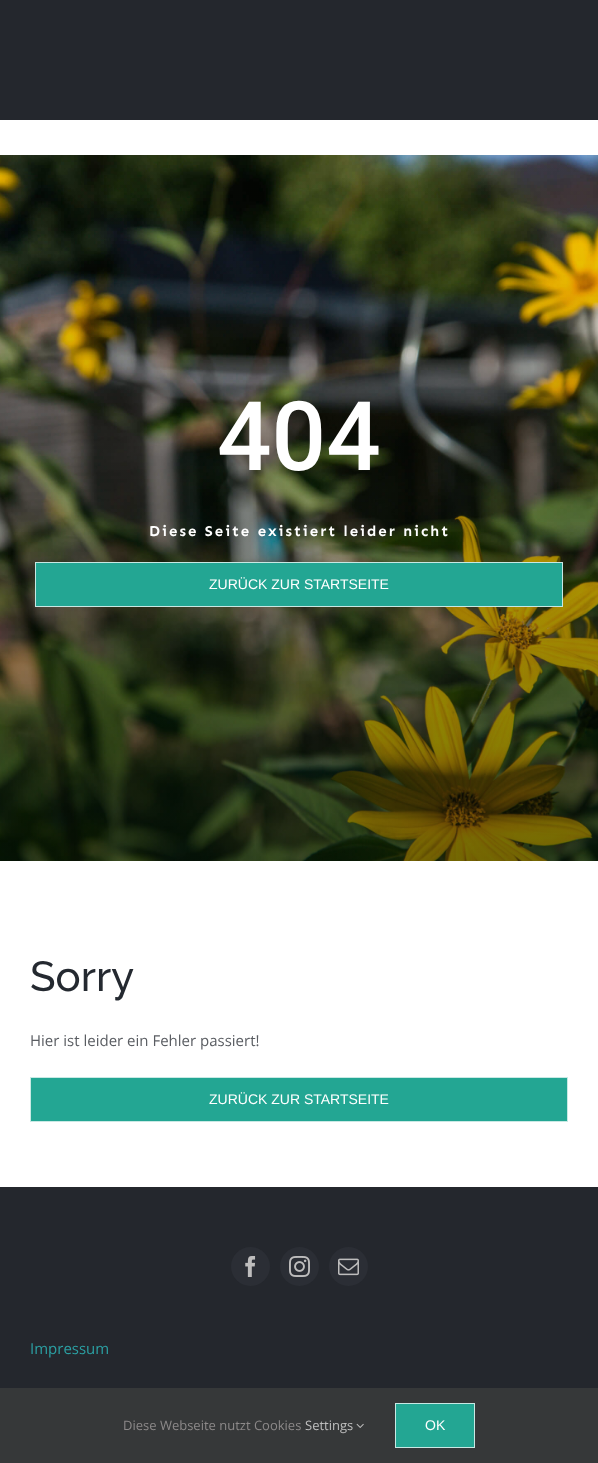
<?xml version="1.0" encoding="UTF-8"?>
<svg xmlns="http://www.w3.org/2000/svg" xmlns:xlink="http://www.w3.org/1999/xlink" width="598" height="1463">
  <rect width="100%" height="100%" fill="#ffffff" />
  <rect width="598" height="120" fill="#24272d" />
  <image x="0" y="155" width="598" height="706" xlink:href="image1.png" />
  <rect x="35.5" y="562.5" width="527" height="44" fill="#23a693" stroke="#c8e9e4" />
  <rect x="30.5" y="1077.5" width="537" height="44" fill="#23a693" stroke="#c8e9e4" />
  <rect y="1187" width="598" height="201" fill="#24272d" />
  <circle cx="250.5" cy="1266.5" r="19.5" fill="#2b2e35" />
  <image x="245" y="1256" width="11" height="21" xlink:href="image2.png" />
  <circle cx="299.5" cy="1266.5" r="19.5" fill="#2b2e35" />
  <image x="289" y="1256" width="21" height="21" xlink:href="image3.png" />
  <circle cx="348.5" cy="1266.5" r="19.5" fill="#2b2e35" />
  <image x="338" y="1258" width="21" height="18" xlink:href="image4.png" />
  <rect y="1388" width="598" height="75" fill="#363839" />
  <image x="356" y="1423" width="8" height="5" xlink:href="image5.png" />
  <rect x="395.5" y="1403.5" width="79" height="44" fill="#23a693" stroke="#c8e9e4" />
  <text x="217" y="470" style="font-family: Roboto; font-size: 96px; font-weight: 500; fill: #ffffff">404</text>
  <text x="149" y="536" style="font-family: Sen; font-size: 15px; font-weight: bold; letter-spacing: 2px; fill: #ffffff">Diese Seite existiert leider nicht</text>
  <text x="209" y="589" style="font-family: Liberation Sans; font-size: 14px; fill: #ffffff">ZURÜCK ZUR STARTSEITE</text>
  <text x="30" y="991" style="font-family: Raleway; font-size: 42px; font-weight: 100; fill: #242930">Sorry</text>
  <text x="30" y="1046" style="font-family: Open Sans; font-size: 15px; fill: #5a5d62">Hier ist leider ein Fehler passiert!</text>
  <text x="209" y="1104" style="font-family: Liberation Sans; font-size: 14px; fill: #ffffff">ZURÜCK ZUR STARTSEITE</text>
  <text x="30" y="1354" style="font-family: Open Sans; font-size: 15px; fill: #2ba0a3">Impressum</text>
  <text x="123" y="1430" style="font-family: Open Sans; font-size: 13px; fill: #8c8989">Diese Webseite nutzt Cookies</text>
  <text x="305" y="1430" style="font-family: Open Sans; font-size: 13px; fill: #bfbfbf">Settings</text>
  <text x="425" y="1430" style="font-family: Liberation Sans; font-size: 14px; fill: #ffffff">OK</text>
</svg>
